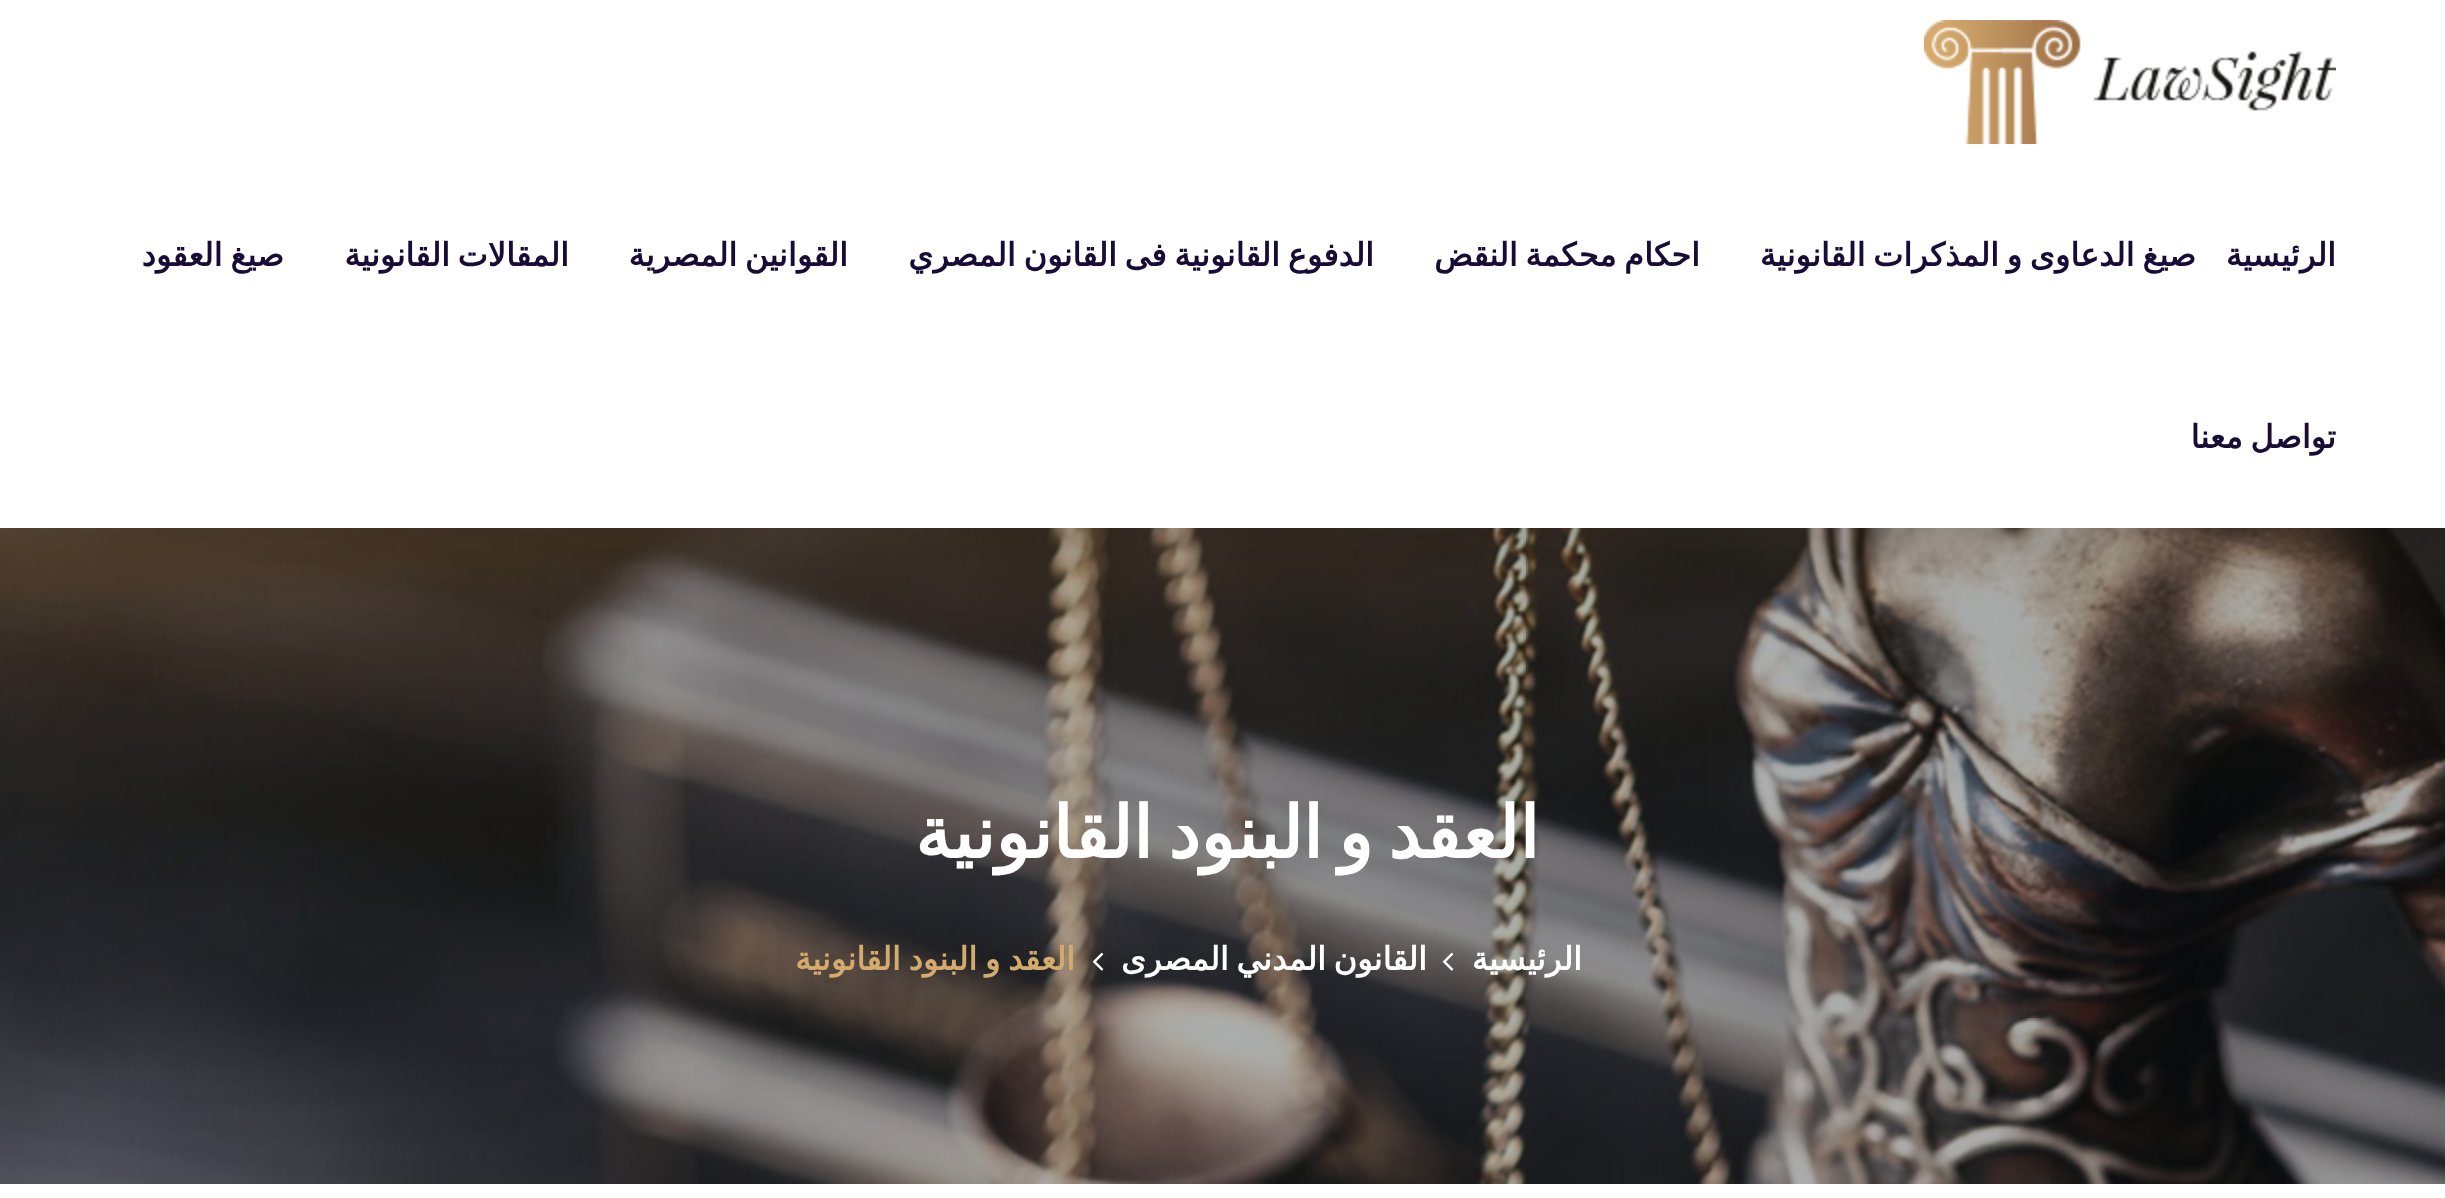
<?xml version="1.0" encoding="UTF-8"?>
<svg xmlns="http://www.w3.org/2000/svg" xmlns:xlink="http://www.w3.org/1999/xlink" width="2445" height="1198">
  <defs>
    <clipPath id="clip1"><rect x="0" y="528" width="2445" height="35" /></clipPath>
  </defs>
  <rect width="100%" height="100%" fill="#ffffff" />
  <image x="0" y="528" width="2445" height="656" xlink:href="image2.png" />
  <g clip-path="url(#clip1)">
    <rect y="4" width="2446" height="528" fill="#222222" fill-opacity="0.14" filter="blur(29px)" />
  </g>
  <image x="1924" y="20" width="412" height="124" xlink:href="image1.png" />
  <image x="1442" y="952" width="12" height="19" xlink:href="image3.png" />
  <image x="1092" y="952" width="12" height="19" xlink:href="image4.png" />
  <text x="2336" y="266" style="font-family: DejaVu Sans; font-size: 32px; font-weight: bold; direction: rtl; fill: #180b36">الرئيسية</text>
  <text x="2196" y="266" word-spacing="-2.5" style="font-family: DejaVu Sans; font-size: 32px; font-weight: bold; direction: rtl; fill: #180b36">صيغ الدعاوى و المذكرات القانونية</text>
  <text x="1700" y="266" word-spacing="-2.5" style="font-family: DejaVu Sans; font-size: 32px; font-weight: bold; direction: rtl; fill: #180b36">احكام محكمة النقض</text>
  <text x="1374" y="266" word-spacing="-2.5" style="font-family: DejaVu Sans; font-size: 32px; font-weight: bold; direction: rtl; fill: #180b36">الدفوع القانونية فى القانون المصري</text>
  <text x="848" y="266" word-spacing="-2.5" style="font-family: DejaVu Sans; font-size: 32px; font-weight: bold; direction: rtl; fill: #180b36">القوانين المصرية</text>
  <text x="569" y="266" word-spacing="-2.5" style="font-family: DejaVu Sans; font-size: 32px; font-weight: bold; direction: rtl; fill: #180b36">المقالات القانونية</text>
  <text x="284" y="266" word-spacing="-2.5" style="font-family: DejaVu Sans; font-size: 32px; font-weight: bold; direction: rtl; fill: #180b36">صيغ العقود</text>
  <text x="2336" y="448" word-spacing="-2.5" style="font-family: DejaVu Sans; font-size: 32px; font-weight: bold; direction: rtl; fill: #180b36">تواصل معنا</text>
  <text x="1539" y="858" word-spacing="-7.5" style="font-family: DejaVu Sans; font-size: 72px; font-weight: bold; direction: rtl; fill: #ffffff">العقد و البنود القانونية</text>
  <text x="1582" y="970" style="font-family: DejaVu Sans; font-size: 32px; font-weight: bold; direction: rtl; fill: #ffffff">الرئيسية</text>
  <text x="1427" y="970" word-spacing="-2.5" style="font-family: DejaVu Sans; font-size: 32px; font-weight: bold; direction: rtl; fill: #ffffff">القانون المدني المصرى</text>
  <text x="1075" y="970" word-spacing="-2.5" style="font-family: DejaVu Sans; font-size: 32px; font-weight: bold; direction: rtl; fill: #d5aa6d">العقد و البنود القانونية</text>
</svg>
